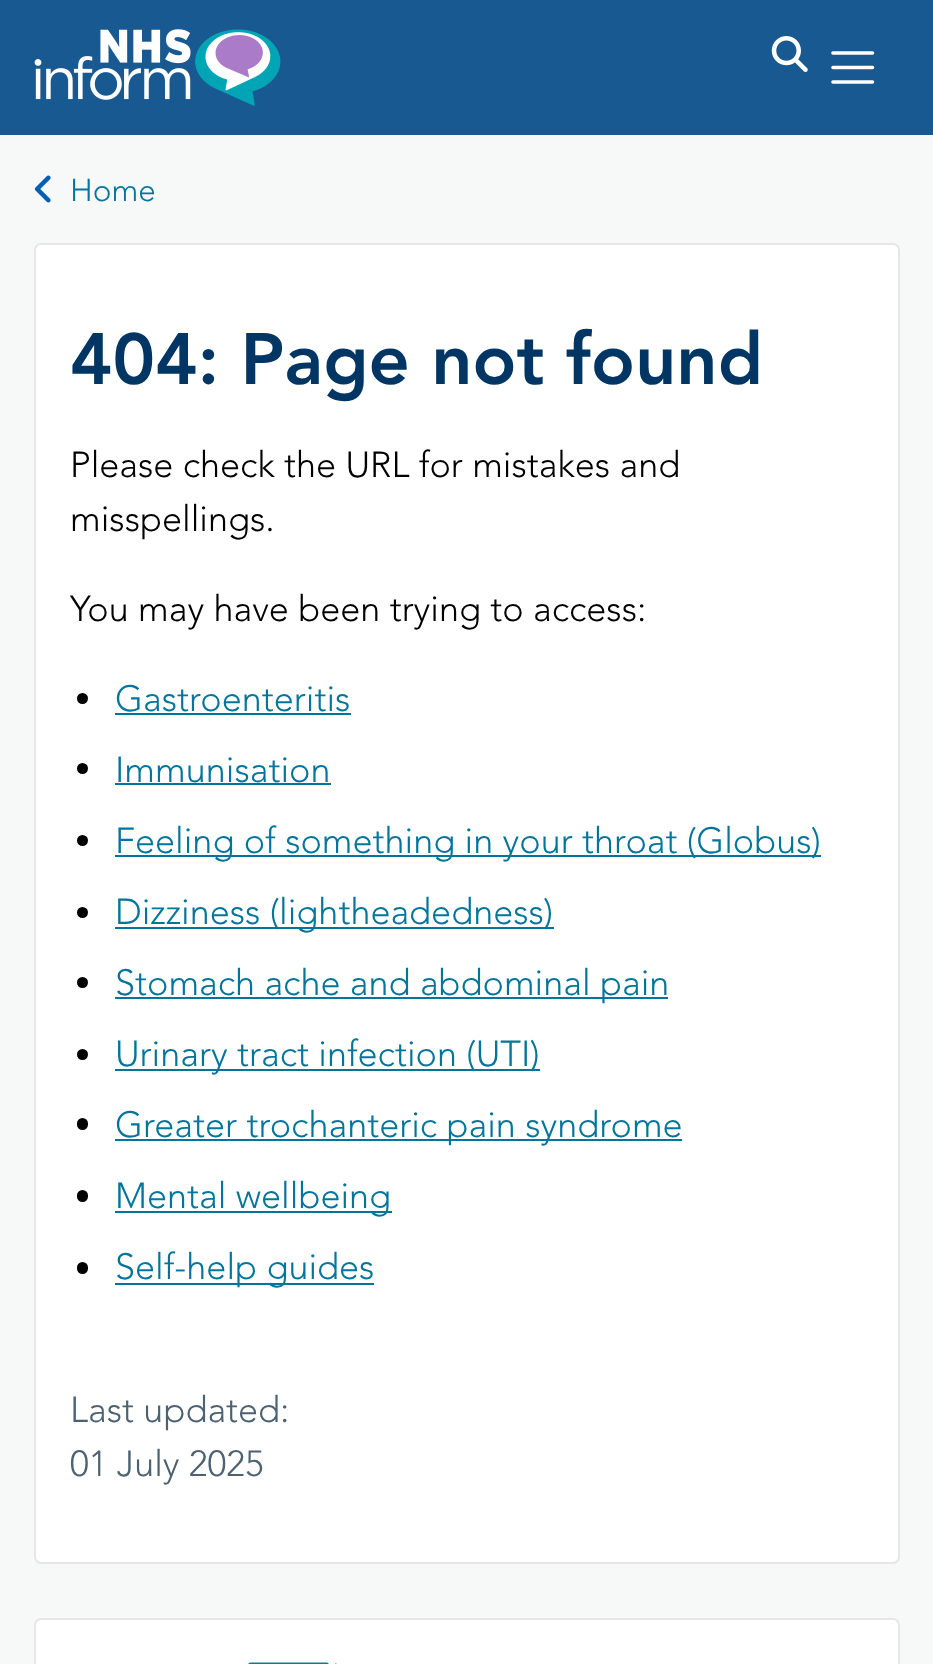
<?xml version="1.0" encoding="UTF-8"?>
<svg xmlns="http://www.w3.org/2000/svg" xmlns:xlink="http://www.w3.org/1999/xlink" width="933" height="1664">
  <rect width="100%" height="100%" fill="#f6f9f7" />
  <rect width="933" height="135" fill="#195991" />
  <image x="34" y="29" width="247" height="77" xlink:href="image1.png" />
  <image x="771" y="36" width="37" height="36" xlink:href="image2.png" />
  <path d="M 833 53 h 39.5 m -39.5 14.5 h 39.5 m -39.5 14.5 h 39.5" fill="none" stroke="#ffffff" stroke-width="3.6" stroke-linecap="round" />
  <image x="34" y="175" width="17" height="28" xlink:href="image3.png" />
  <rect x="35" y="244" width="864" height="1319" rx="6" fill="#ffffff" stroke="#e6e6e6" stroke-width="2" />
  <circle cx="82.5" cy="698.5" r="5.5" fill="#000000" />
  <rect x="115" y="713" width="236" height="2" fill="#03759b" />
  <circle cx="82.5" cy="768.5" r="5.5" fill="#000000" />
  <rect x="115" y="783" width="216" height="2" fill="#03759b" />
  <circle cx="82.5" cy="840.5" r="5.5" fill="#000000" />
  <rect x="115" y="855" width="706" height="2" fill="#03759b" />
  <circle cx="82.5" cy="912.5" r="5.5" fill="#000000" />
  <rect x="115" y="927" width="439" height="2" fill="#03759b" />
  <circle cx="82.5" cy="982.5" r="5.5" fill="#000000" />
  <rect x="115" y="997" width="553" height="2" fill="#03759b" />
  <circle cx="82.5" cy="1054.5" r="5.5" fill="#000000" />
  <rect x="115" y="1069" width="425" height="2" fill="#03759b" />
  <rect x="77" y="1118" width="11" height="12" rx="5.5" fill="#000000" />
  <rect x="115" y="1139" width="567" height="2" fill="#03759b" />
  <rect x="77" y="1190" width="11" height="12" rx="5.5" fill="#000000" />
  <rect x="115" y="1211" width="277" height="2" fill="#03759b" />
  <rect x="77" y="1262" width="11" height="12" rx="5.5" fill="#000000" />
  <rect x="115" y="1283" width="259" height="2" fill="#03759b" />
  <rect x="35" y="1619" width="864" height="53" rx="6" fill="#ffffff" stroke="#e6e6e6" stroke-width="2" />
  <image x="248" y="1662" width="89" height="2" xlink:href="image4.png" />
  <text x="70" y="201" style="font-family: Avenir; font-size: 31.5px; font-weight: 300; fill: #03759b">Home</text>
  <text x="70" y="384" style="font-family: Avenir; font-size: 72px; font-weight: 900; fill: #013664">404: Page not found</text>
  <text x="70" y="477" style="font-family: Avenir; font-size: 36px; font-weight: 300; fill: #000000">Please check the URL for mistakes and</text>
  <text x="70" y="531" style="font-family: Avenir; font-size: 36px; font-weight: 300; fill: #000000">misspellings.</text>
  <text x="70" y="621" style="font-family: Avenir; font-size: 36px; font-weight: 300; fill: #000000">You may have been trying to access:</text>
  <text x="115" y="711" style="font-family: Avenir; font-size: 36px; font-weight: 300; fill: #03759b">Gastroenteritis</text>
  <text x="115" y="782" style="font-family: Avenir; font-size: 36px; font-weight: 300; fill: #03759b">Immunisation</text>
  <text x="115" y="853" style="font-family: Avenir; font-size: 36px; font-weight: 300; fill: #03759b">Feeling of something in your throat (Globus)</text>
  <text x="115" y="924" style="font-family: Avenir; font-size: 36px; font-weight: 300; fill: #03759b">Dizziness (lightheadedness)</text>
  <text x="115" y="995" style="font-family: Avenir; font-size: 36px; font-weight: 300; fill: #03759b">Stomach ache and abdominal pain</text>
  <text x="115" y="1066" style="font-family: Avenir; font-size: 36px; font-weight: 300; fill: #03759b">Urinary tract infection (UTI)</text>
  <text x="115" y="1137" style="font-family: Avenir; font-size: 36px; font-weight: 300; fill: #03759b">Greater trochanteric pain syndrome</text>
  <text x="115" y="1208" style="font-family: Avenir; font-size: 36px; font-weight: 300; fill: #03759b">Mental wellbeing</text>
  <text x="115" y="1279" style="font-family: Avenir; font-size: 36px; font-weight: 300; fill: #03759b">Self-help guides</text>
  <text x="70" y="1422" style="font-family: Avenir; font-size: 36px; font-weight: 300; fill: #4c6272">Last updated:</text>
  <text x="70" y="1476" style="font-family: Avenir; font-size: 36px; font-weight: 300; fill: #4c6272">01 July 2025</text>
</svg>
